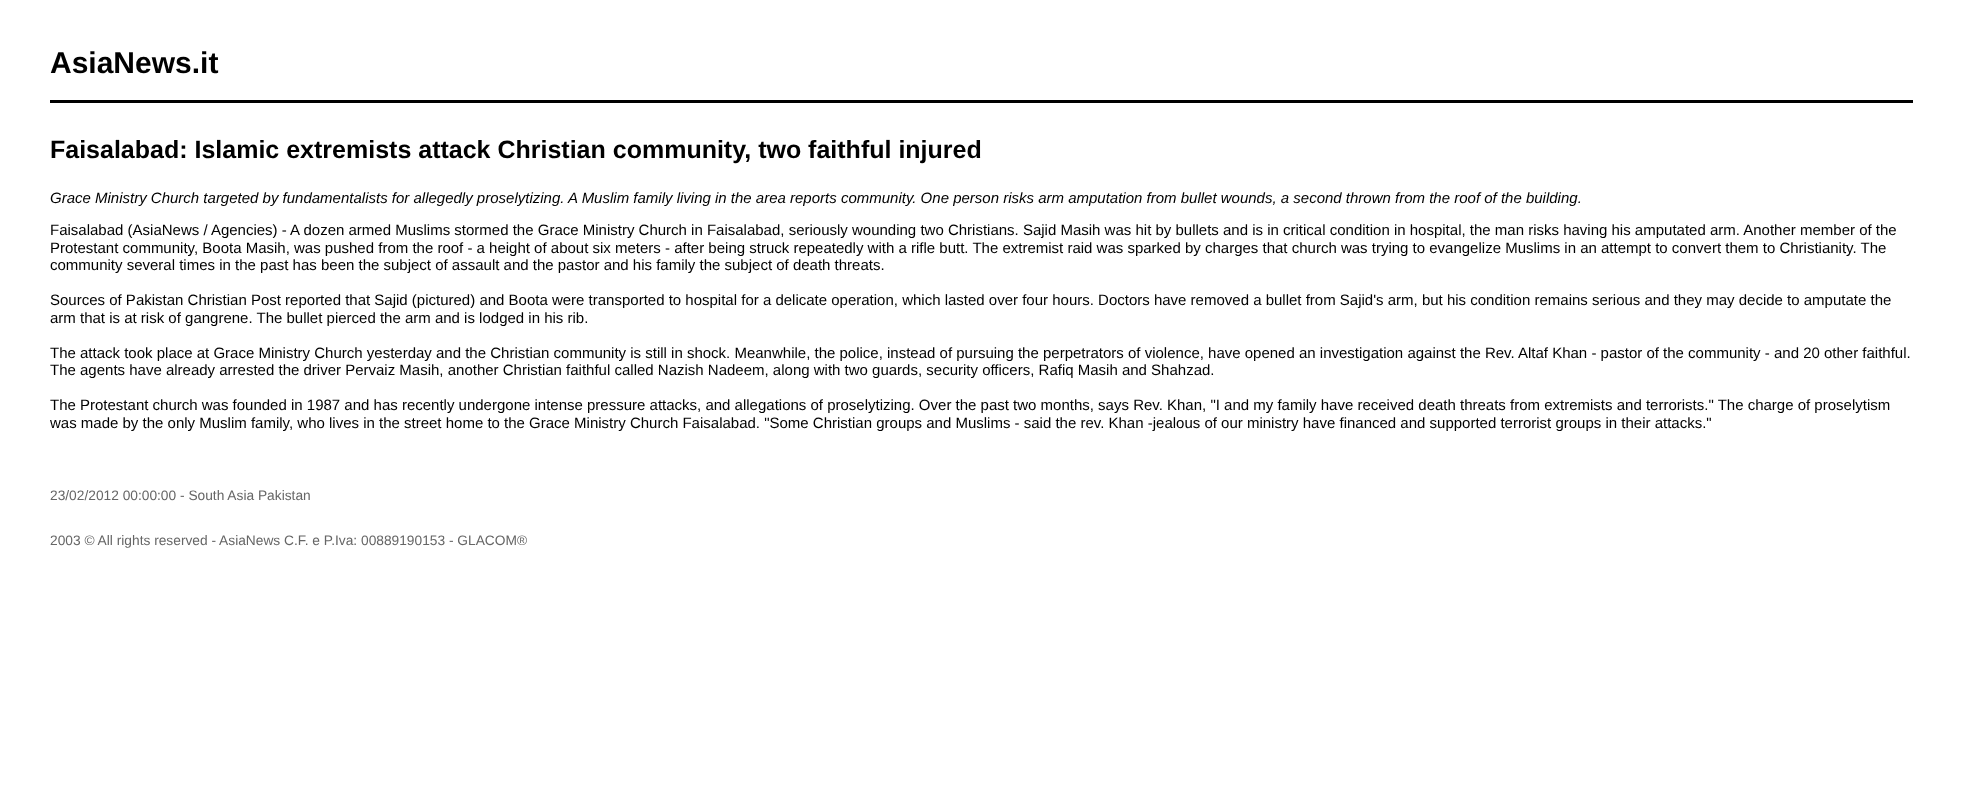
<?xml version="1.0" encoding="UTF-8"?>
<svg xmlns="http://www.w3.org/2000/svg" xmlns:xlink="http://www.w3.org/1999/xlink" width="1962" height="808">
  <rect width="100%" height="100%" fill="#ffffff" />
  <rect x="50" y="100" width="1863" height="3" fill="#000000" />
  <text x="50" y="73" style="font-family: Liberation Sans; font-size: 30px; font-weight: bold; fill: #000000">AsiaNews.it</text>
  <text x="50" y="158" style="font-family: Liberation Sans; font-size: 25px; font-weight: bold; fill: #000000">Faisalabad: Islamic extremists attack Christian community, two faithful injured</text>
  <text x="50" y="203" style="font-family: Liberation Sans; font-size: 15px; font-style: italic; fill: #000000">Grace Ministry Church targeted by fundamentalists for allegedly proselytizing. A Muslim family living in the area reports community. One person risks arm amputation from bullet wounds, a second thrown from the roof of the building.</text>
  <text x="50" y="235" style="font-family: Liberation Sans; font-size: 15px; fill: #000000">Faisalabad (AsiaNews / Agencies) - A dozen armed Muslims stormed the Grace Ministry Church in Faisalabad, seriously wounding two Christians. Sajid Masih was hit by bullets and is in critical condition in hospital, the man risks having his amputated arm. Another member of the</text>
  <text x="50" y="253" style="font-family: Liberation Sans; font-size: 15px; fill: #000000">Protestant community, Boota Masih, was pushed from the roof - a height of about six meters - after being struck repeatedly with a rifle butt. The extremist raid was sparked by charges that church was trying to evangelize Muslims in an attempt to convert them to Christianity. The</text>
  <text x="50" y="270" style="font-family: Liberation Sans; font-size: 15px; fill: #000000">community several times in the past has been the subject of assault and the pastor and his family the subject of death threats.</text>
  <text x="50" y="305" style="font-family: Liberation Sans; font-size: 15px; fill: #000000">Sources of Pakistan Christian Post reported that Sajid (pictured) and Boota were transported to hospital for a delicate operation, which lasted over four hours. Doctors have removed a bullet from Sajid's arm, but his condition remains serious and they may decide to amputate the</text>
  <text x="50" y="323" style="font-family: Liberation Sans; font-size: 15px; fill: #000000">arm that is at risk of gangrene. The bullet pierced the arm and is lodged in his rib.</text>
  <text x="50" y="358" style="font-family: Liberation Sans; font-size: 15px; fill: #000000">The attack took place at Grace Ministry Church yesterday and the Christian community is still in shock. Meanwhile, the police, instead of pursuing the perpetrators of violence, have opened an investigation against the Rev. Altaf Khan - pastor of the community - and 20 other faithful.</text>
  <text x="50" y="375" style="font-family: Liberation Sans; font-size: 15px; fill: #000000">The agents have already arrested the driver Pervaiz Masih, another Christian faithful called Nazish Nadeem, along with two guards, security officers, Rafiq Masih and Shahzad.</text>
  <text x="50" y="410" style="font-family: Liberation Sans; font-size: 15px; fill: #000000">The Protestant church was founded in 1987 and has recently undergone intense pressure attacks, and allegations of proselytizing. Over the past two months, says Rev. Khan, "I and my family have received death threats from extremists and terrorists." The charge of proselytism</text>
  <text x="50" y="428" style="font-family: Liberation Sans; font-size: 15px; fill: #000000">was made by the only Muslim family, who lives in the street home to the Grace Ministry Church Faisalabad. "Some Christian groups and Muslims - said the rev. Khan -jealous of our ministry have financed and supported terrorist groups in their attacks."</text>
  <text x="50" y="500" style="font-family: Liberation Sans; font-size: 13.75px; fill: #666666">23/02/2012 00:00:00 - South Asia Pakistan</text>
  <text x="50" y="545" style="font-family: Liberation Sans; font-size: 13.75px; fill: #666666">2003 © All rights reserved - AsiaNews C.F. e P.Iva: 00889190153 - GLACOM®</text>
</svg>
